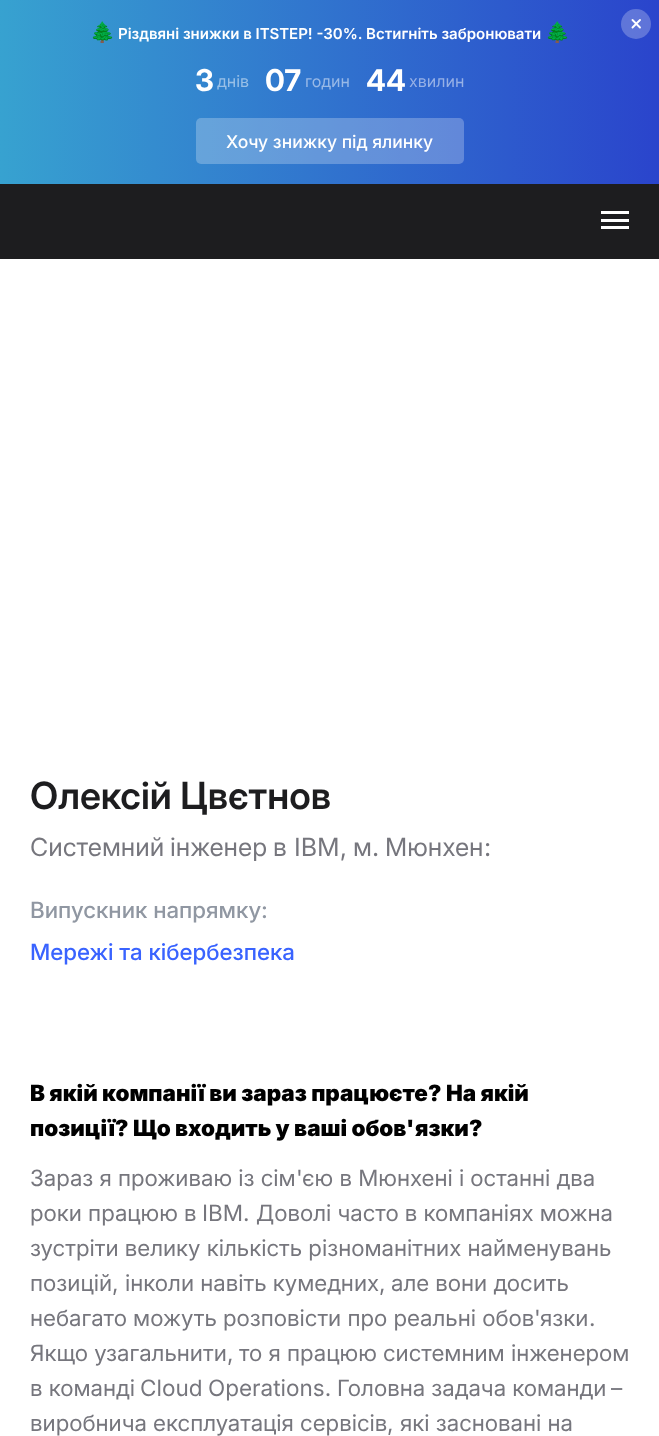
<?xml version="1.0" encoding="UTF-8"?>
<svg xmlns="http://www.w3.org/2000/svg" xmlns:xlink="http://www.w3.org/1999/xlink" width="659" height="1436">
  <defs>
    <linearGradient id="g1" gradientUnits="userSpaceOnUse" x1="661" y1="90" x2="-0.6" y2="94"><stop offset="0" stop-color="#2a44cc" /><stop offset="1" stop-color="#37a2d0" /></linearGradient>
    <clipPath id="clip1"><rect x="90" y="20" width="480" height="24" /></clipPath>
  </defs>
  <rect width="100%" height="100%" fill="#ffffff" />
  <rect y="184" width="659" height="75" fill="#1d1d1f" />
  <rect width="659" height="184" fill="url(#g1)" />
  <rect x="196" y="118" width="268" height="46" rx="5" fill="#ffffff" fill-opacity="0.25" />
  <circle cx="636" cy="24" r="15" fill="#ffffff" fill-opacity="0.25" />
  <path d="M 640 20 l -7.5 7.5 m 0 -7.5 l 7.5 7.5" fill="none" stroke="#ffffff" stroke-width="1.9" stroke-linecap="round" stroke-linejoin="round" />
  <rect x="601" y="211" width="28" height="3" fill="#ffffff" />
  <rect x="601" y="219" width="28" height="3" fill="#ffffff" />
  <rect x="601" y="226" width="28" height="3" fill="#ffffff" />
  <g clip-path="url(#clip1)">
    <text x="90" y="39" style="font-family: Noto Color Emoji; font-size: 20px; font-weight: bold; fill: #ffffff">🌲</text>
  </g>
  <text x="118" y="39" style="font-family: 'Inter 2'; font-size: 15px; font-weight: 600; fill: #ffffff">Різдвяні знижки в ITSTEP! -30%. Встигніть забронювати</text>
  <text x="545" y="39" style="font-family: Noto Color Emoji; font-size: 20px; font-weight: bold; fill: #ffffff">🌲</text>
  <text x="195" y="91" style="font-family: Inter; font-size: 30px; font-weight: bold; fill: #ffffff">3</text>
  <text x="217" y="87" style="font-family: 'Inter 2'; font-size: 16px; fill: #99c0e7">днів</text>
  <text x="265" y="91" style="font-family: Inter; font-size: 30px; font-weight: bold; fill: #ffffff">07</text>
  <text x="305" y="87" style="font-family: 'Inter 2'; font-size: 16px; fill: #98b9e7">годин</text>
  <text x="366" y="91" style="font-family: Inter; font-size: 30px; font-weight: bold; fill: #ffffff">44</text>
  <text x="409" y="87" style="font-family: 'Inter 2'; font-size: 16px; fill: #97b1e6">хвилин</text>
  <text x="226" y="148" style="font-family: 'Inter 2'; font-size: 17.5px; font-weight: 500; fill: #ffffff">Хочу знижку під ялинку</text>
  <text x="30" y="809" style="font-family: Inter; font-size: 37.5px; font-weight: 600; fill: #1d1d1f">Олексій Цвєтнов</text>
  <text x="30" y="856" word-spacing="-1" style="font-family: 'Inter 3'; font-size: 25px; fill: #76767d">Системний інженер в</text>
  <text x="294" y="856" style="font-family: 'Inter 2'; font-size: 25px; fill: #76767d">IBM,</text>
  <text x="353" y="856" style="font-family: 'Inter 3'; font-size: 25px; fill: #76767d">м</text>
  <text x="372" y="856" style="font-family: 'Inter 2'; font-size: 25px; fill: #76767d">.</text>
  <text x="385" y="856" style="font-family: 'Inter 3'; font-size: 25px; fill: #76767d">Мюнхен</text>
  <text x="484" y="856" style="font-family: 'Inter 2'; font-size: 25px; fill: #76767d">:</text>
  <text x="30" y="918" style="font-family: Inter; font-size: 22.5px; font-weight: 500; fill: #9097a2">Випускник напрямку</text>
  <text x="261" y="918" style="font-family: 'Inter 2'; font-size: 22.5px; font-weight: 500; fill: #9097a2">:</text>
  <text x="30" y="960" style="font-family: Inter; font-size: 22.5px; font-weight: 500; fill: #3963ff">Мережі та кібербезпека</text>
  <text x="30" y="1101" style="font-family: Inter; font-size: 22.5px; font-weight: 900; fill: #000000">В якій компанії ви зараз працюєте</text>
  <text x="428" y="1101" style="font-family: 'Inter 2'; font-size: 22.5px; font-weight: 900; fill: #000000">?</text>
  <text x="446" y="1101" style="font-family: Inter; font-size: 22.5px; font-weight: 900; fill: #000000">На якій</text>
  <text x="30" y="1136" style="font-family: Inter; font-size: 22.5px; font-weight: 900; fill: #000000">позиції</text>
  <text x="115" y="1136" style="font-family: 'Inter 2'; font-size: 22.5px; font-weight: 900; fill: #000000">?</text>
  <text x="133" y="1136" style="font-family: Inter; font-size: 22.5px; font-weight: 900; fill: #000000">Що входить у ваші обов</text>
  <text x="406" y="1136" style="font-family: 'Inter 2'; font-size: 22.5px; font-weight: 900; fill: #000000">'</text>
  <text x="415" y="1136" style="font-family: Inter; font-size: 22.5px; font-weight: 900; fill: #000000">язки</text>
  <text x="469" y="1136" style="font-family: 'Inter 2'; font-size: 22.5px; font-weight: 900; fill: #000000">?</text>
  <text x="30" y="1186" style="font-family: Inter; font-size: 22.5px; fill: #76767d">Зараз я проживаю із сім</text>
  <text x="296" y="1186" style="font-family: 'Inter 2'; font-size: 22.5px; fill: #76767d">'</text>
  <text x="302" y="1186" style="font-family: Inter; font-size: 22.5px; fill: #76767d">єю в Мюнхені і останні два</text>
  <text x="30" y="1221" style="font-family: Inter; font-size: 22.5px; fill: #76767d">роки працюю в</text>
  <text x="202" y="1221" style="font-family: 'Inter 2'; font-size: 22.5px; fill: #76767d">IBM.</text>
  <text x="256" y="1221" style="font-family: Inter; font-size: 22.5px; fill: #76767d">Доволі часто в компаніях можна</text>
  <text x="30" y="1256" style="font-family: Inter; font-size: 22.5px; fill: #76767d">зустріти велику кількість різноманітних найменувань</text>
  <text x="30" y="1291" style="font-family: Inter; font-size: 22.5px; fill: #76767d">позицій</text>
  <text x="112" y="1291" style="font-family: 'Inter 2'; font-size: 22.5px; fill: #76767d">,</text>
  <text x="125" y="1291" style="font-family: Inter; font-size: 22.5px; fill: #76767d">інколи навіть кумедних</text>
  <text x="379" y="1291" style="font-family: 'Inter 2'; font-size: 22.5px; fill: #76767d">,</text>
  <text x="391" y="1291" style="font-family: Inter; font-size: 22.5px; fill: #76767d">але вони досить</text>
  <text x="30" y="1326" style="font-family: Inter; font-size: 22.5px; fill: #76767d">небагато можуть розповісти про реальні обов</text>
  <text x="534" y="1326" style="font-family: 'Inter 2'; font-size: 22.5px; fill: #76767d">'</text>
  <text x="540" y="1326" style="font-family: Inter; font-size: 22.5px; fill: #76767d">язки</text>
  <text x="589" y="1326" style="font-family: 'Inter 2'; font-size: 22.5px; fill: #76767d">.</text>
  <text x="30" y="1361" style="font-family: Inter; font-size: 22.5px; fill: #76767d">Якщо узагальнити</text>
  <text x="227" y="1361" style="font-family: 'Inter 2'; font-size: 22.5px; fill: #76767d">,</text>
  <text x="239" y="1361" style="font-family: Inter; font-size: 22.5px; fill: #76767d">то я працюю системним інженером</text>
  <text x="30" y="1396" style="font-family: Inter; font-size: 22.5px; fill: #76767d">в команді</text>
  <text x="140" y="1396" style="font-family: 'Inter 2'; font-size: 22.5px; fill: #76767d">Cloud</text>
  <text x="208" y="1396" style="font-family: 'Inter 2'; font-size: 22.5px; fill: #76767d">Operations.</text>
  <text x="337" y="1396" style="font-family: Inter; font-size: 22.5px; fill: #76767d">Головна задача команди</text>
  <text x="611" y="1396" style="font-family: 'Inter 2'; font-size: 22.5px; fill: #76767d">–</text>
  <text x="30" y="1431" style="font-family: Inter; font-size: 22.5px; fill: #76767d">виробнича експлуатація сервісів</text>
  <text x="387" y="1431" style="font-family: 'Inter 2'; font-size: 22.5px; fill: #76767d">,</text>
  <text x="400" y="1431" style="font-family: Inter; font-size: 22.5px; fill: #76767d">які засновані на</text>
</svg>
